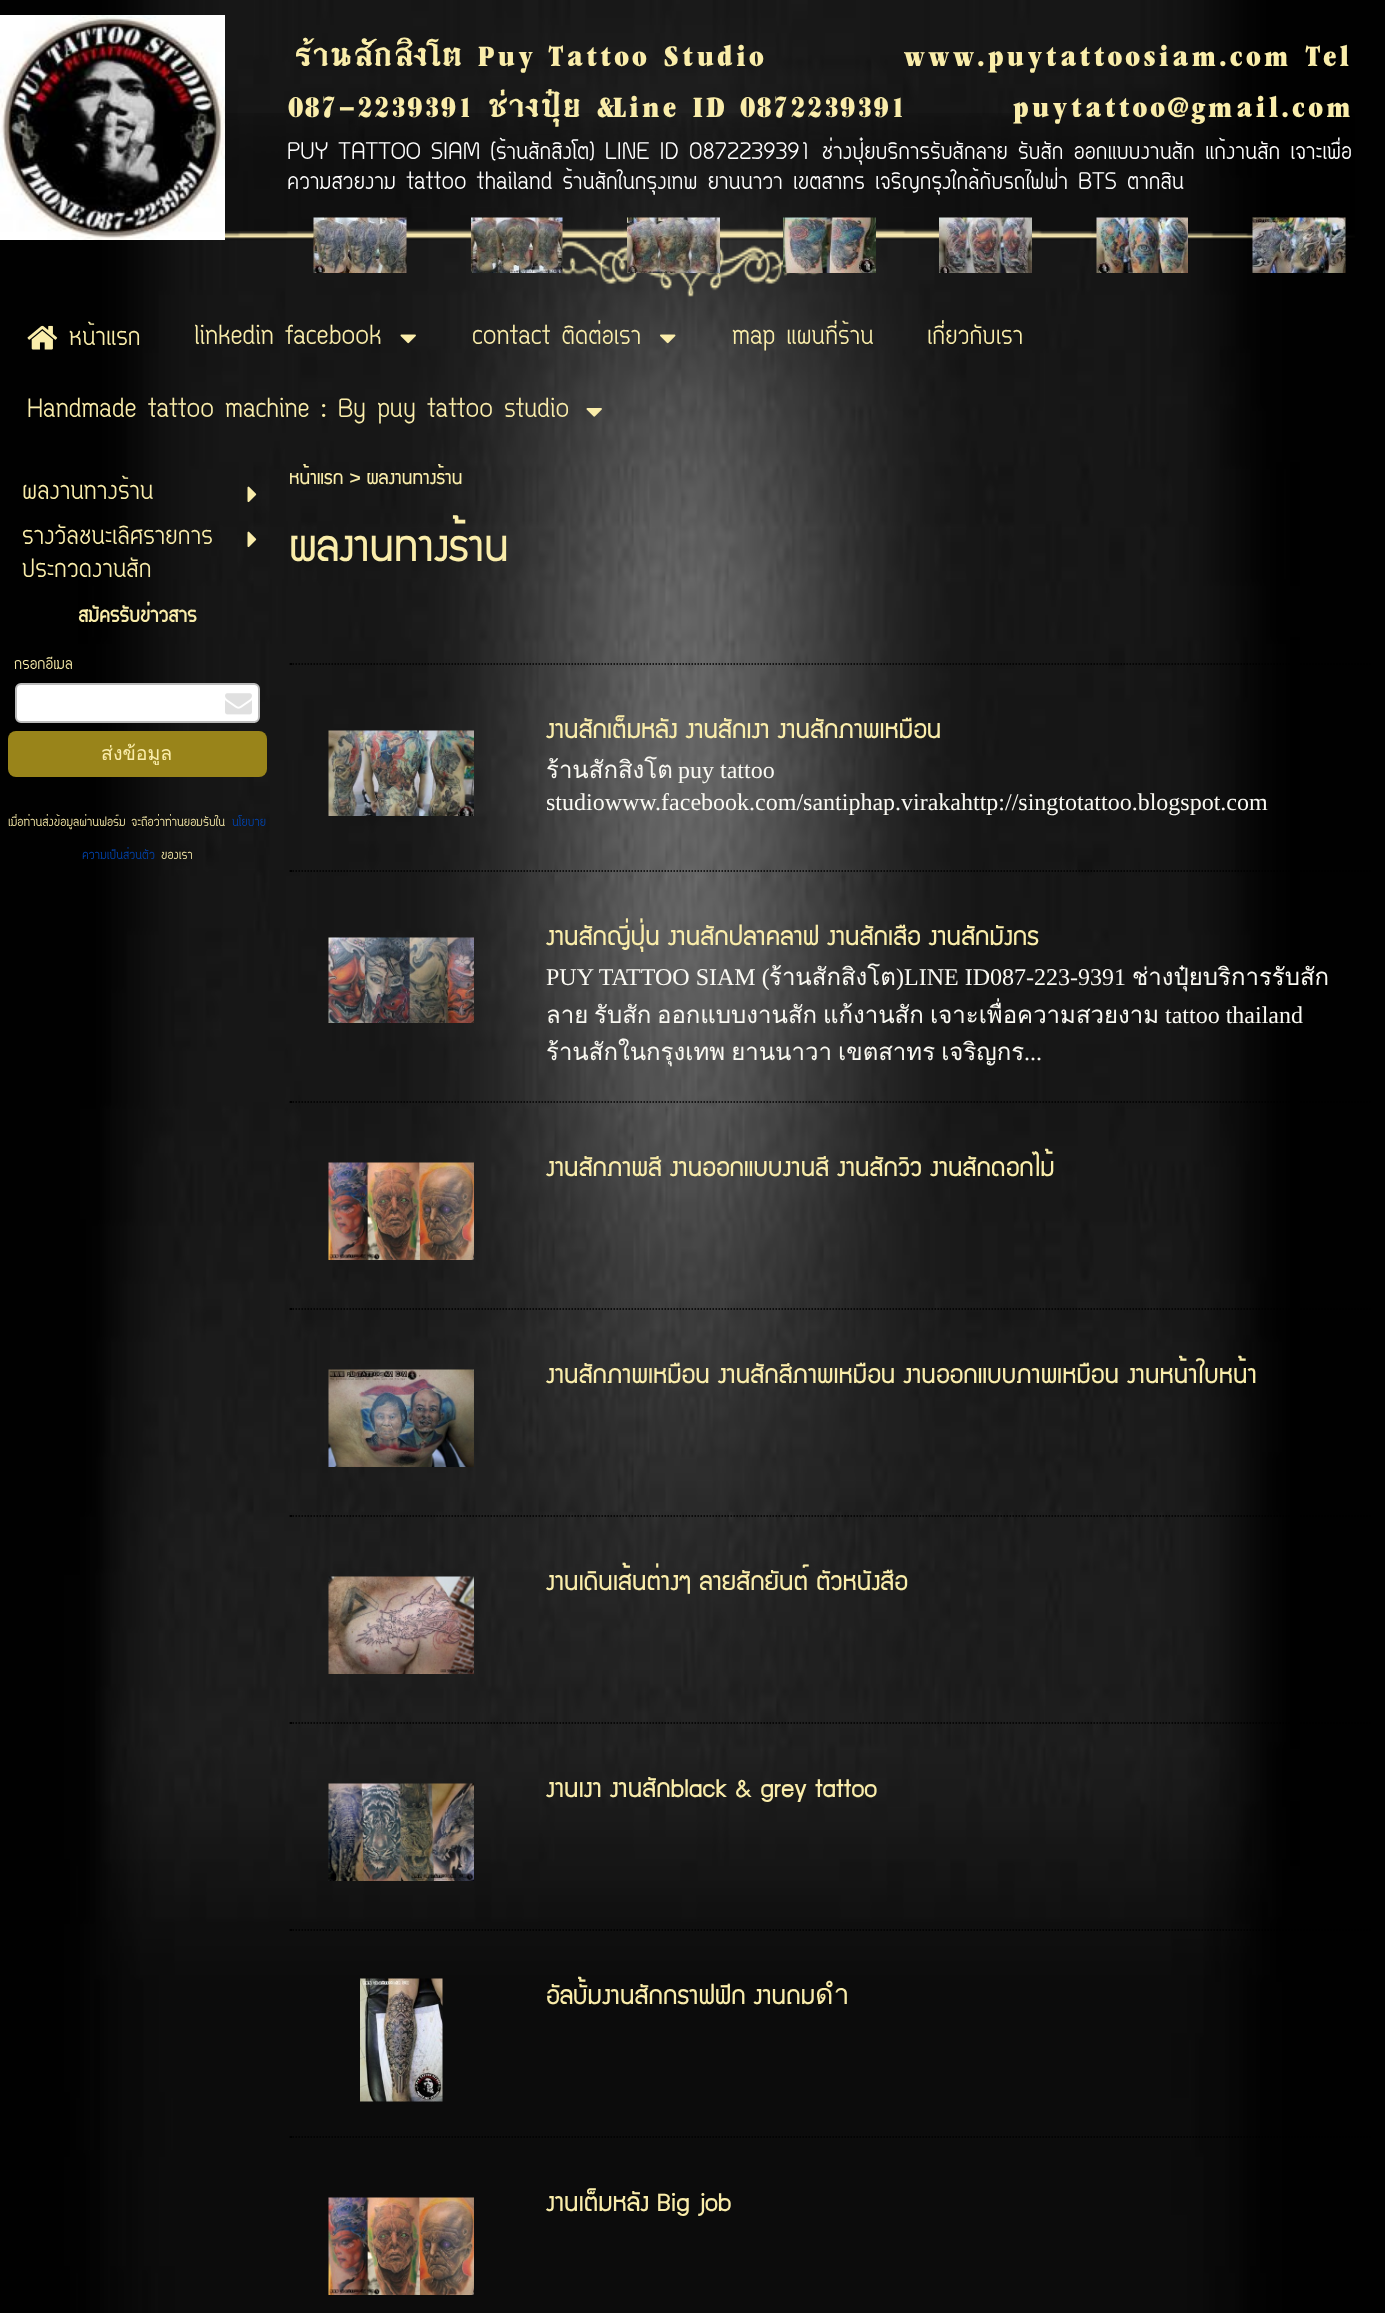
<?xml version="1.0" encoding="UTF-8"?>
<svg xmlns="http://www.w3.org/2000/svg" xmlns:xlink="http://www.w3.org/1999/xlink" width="1385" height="2313">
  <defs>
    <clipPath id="clip1"><rect x="546" y="695" width="798" height="121" /></clipPath>
    <clipPath id="clip2"><rect x="546" y="902" width="798" height="169" /></clipPath>
    <clipPath id="clip3"><rect x="546" y="1961" width="798" height="57" /></clipPath>
  </defs>
  <rect width="100%" height="100%" fill="#ffffff" />
  <image x="0" y="0" width="1385" height="2313" xlink:href="image1.png" />
  <image x="82" y="113" width="1273" height="184" xlink:href="image2.png" />
  <image x="0" y="15" width="225" height="225" xlink:href="image3.png" />
  <image x="313" y="217" width="94" height="56" xlink:href="image4.png" />
  <image x="471" y="217" width="92" height="56" xlink:href="image5.png" />
  <image x="627" y="217" width="93" height="56" xlink:href="image6.png" />
  <image x="783" y="217" width="93" height="56" xlink:href="image7.png" />
  <image x="939" y="217" width="93" height="56" xlink:href="image8.png" />
  <image x="1096" y="217" width="92" height="56" xlink:href="image9.png" />
  <image x="1252" y="217" width="94" height="56" xlink:href="image10.png" />
  <image x="27" y="325" width="31" height="25" xlink:href="image11.png" />
  <image x="400" y="334" width="16" height="10" xlink:href="image12.png" />
  <image x="660" y="334" width="16" height="10" xlink:href="image13.png" />
  <image x="586" y="408" width="16" height="9" xlink:href="image14.png" />
  <image x="247" y="486" width="10" height="17" xlink:href="image15.png" />
  <image x="247" y="531" width="10" height="17" xlink:href="image16.png" />
  <rect x="16" y="684" width="243" height="38" rx="5" fill="#ffffff" stroke="#bbbbbb" stroke-width="2" />
  <image x="225" y="693" width="27" height="22" xlink:href="image17.png" />
  <rect x="8" y="731" width="259" height="46" rx="8" fill="#99841a" />
  <path d="M 289.5 664 h 1083" fill="none" stroke="#000000" stroke-width="1.5" stroke-dasharray="1.5 1.5" />
  <rect x="290" y="663" width="2" height="2" fill="#000000" />
  <image x="328" y="730" width="146" height="86" xlink:href="image18.png" />
  <path d="M 289.5 871 h 1083" fill="none" stroke="#000000" stroke-width="1.5" stroke-dasharray="1.5 1.5" />
  <rect x="290" y="870" width="2" height="2" fill="#000000" />
  <image x="328" y="937" width="146" height="86" xlink:href="image19.png" />
  <path d="M 289.5 1102 h 1083" fill="none" stroke="#000000" stroke-width="1.5" stroke-dasharray="1.5 1.5" />
  <rect x="290" y="1101" width="2" height="2" fill="#000000" />
  <image x="328" y="1162" width="146" height="98" xlink:href="image20.png" />
  <path d="M 289.5 1309 h 1083" fill="none" stroke="#000000" stroke-width="1.5" stroke-dasharray="1.5 1.5" />
  <rect x="290" y="1308" width="2" height="2" fill="#000000" />
  <image x="328" y="1369" width="146" height="98" xlink:href="image21.png" />
  <path d="M 289.5 1516 h 1083" fill="none" stroke="#000000" stroke-width="1.5" stroke-dasharray="1.5 1.5" />
  <rect x="290" y="1515" width="2" height="2" fill="#000000" />
  <image x="328" y="1576" width="146" height="98" xlink:href="image22.png" />
  <path d="M 289.5 1723 h 1083" fill="none" stroke="#000000" stroke-width="1.5" stroke-dasharray="1.5 1.5" />
  <rect x="290" y="1722" width="2" height="2" fill="#000000" />
  <image x="328" y="1783" width="146" height="98" xlink:href="image23.png" />
  <path d="M 289.5 1930 h 1083" fill="none" stroke="#000000" stroke-width="1.5" stroke-dasharray="1.5 1.5" />
  <rect x="290" y="1929" width="2" height="2" fill="#000000" />
  <image x="360" y="1978" width="83" height="124" xlink:href="image24.png" />
  <path d="M 289.5 2137 h 1083" fill="none" stroke="#000000" stroke-width="1.5" stroke-dasharray="1.5 1.5" />
  <rect x="290" y="2136" width="2" height="2" fill="#000000" />
  <image x="328" y="2197" width="146" height="98" xlink:href="image25.png" />
  <text x="294" y="66" style="font-family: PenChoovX; font-size: 50.75px; fill: #faedaa">ร้านสักสิงโต</text>
  <text x="476" y="66" style="font-family: PenChoovX; font-size: 50.75px; fill: #faedaa">Puy</text>
  <text x="547" y="66" style="font-family: PenChoovX; font-size: 50.75px; fill: #faedaa">Tattoo</text>
  <text x="661" y="66" style="font-family: PenChoovX; font-size: 50.75px; fill: #faedaa">Studio</text>
  <text x="902" y="66" style="font-family: PenChoovX; font-size: 50.75px; fill: #faedaa">www.puytattoosiam.com</text>
  <text x="1304" y="66" style="font-family: PenChoovX; font-size: 50.75px; fill: #faedaa">Tel</text>
  <text x="287" y="117" style="font-family: PenChoovX; font-size: 50.75px; fill: #faedaa">087-2239391</text>
  <text x="488" y="117" style="font-family: PenChoovX; font-size: 50.75px; fill: #faedaa">ช่างปุ๋ย</text>
  <text x="596" y="117" style="font-family: PenChoovX; font-size: 50.75px; fill: #faedaa">&amp;</text>
  <text x="611" y="117" style="font-family: PenChoovX; font-size: 50.75px; fill: #faedaa">Line</text>
  <text x="691" y="117" style="font-family: PenChoovX; font-size: 50.75px; fill: #faedaa">ID</text>
  <text x="739" y="117" style="font-family: PenChoovX; font-size: 50.75px; fill: #faedaa">0872239391</text>
  <text x="1011" y="117" style="font-family: PenChoovX; font-size: 50.75px; fill: #faedaa">puytattoo@gmail.com</text>
  <text x="287" y="159" style="font-family: Circular; font-size: 30.05px; fill: #ffffff">PUY TATTOO SIAM (ร้านสักสิงโต) LINE ID 0872239391 ช่างปุ๋ยบริการรับสักลาย รับสัก ออกแบบงานสัก แก้งานสัก เจาะเพื่อ</text>
  <text x="287" y="189" style="font-family: Circular; font-size: 30.05px; fill: #ffffff">ความสวยงาม tattoo thailand ร้านสักในกรุงเทพ ยานนาวา เขตสาทร เจริญกรุงใกล้กับรถไฟฟ่า BTS ตากสิน</text>
  <text x="69" y="345" style="font-family: Circular; font-size: 33px; fill: #faedaa">หน้าแรก</text>
  <text x="194" y="344" style="font-family: Circular; font-size: 33px; fill: #faedaa">linkedin facebook</text>
  <text x="472" y="344" style="font-family: Circular; font-size: 33px; fill: #faedaa">contact ติดต่อเรา</text>
  <text x="732" y="344" style="font-family: Circular; font-size: 33px; fill: #faedaa">map แผนที่ร้าน</text>
  <text x="927" y="344" style="font-family: Circular; font-size: 33px; fill: #faedaa">เกี่ยวกับเรา</text>
  <text x="27" y="417" style="font-family: Circular; font-size: 33px; fill: #faedaa">Handmade tattoo machine : By puy tattoo studio</text>
  <text x="289" y="484" style="font-family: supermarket; font-size: 21px; fill: #faedaa">หน้าแรก &gt; ผลงานทางร้าน</text>
  <text x="22" y="499" style="font-family: Circular; font-size: 33px; fill: #faedaa">ผลงานทางร้าน</text>
  <text x="22" y="544" style="font-family: Circular; font-size: 33px; fill: #faedaa">รางวัลชนะเลิศรายการ</text>
  <text x="22" y="577" style="font-family: Circular; font-size: 33px; fill: #faedaa">ประกวดงานสัก</text>
  <text x="78" y="622" style="font-family: Circular; font-size: 27px; font-weight: bold; fill: #faedaa">สมัครรับข่าวสาร</text>
  <text x="14" y="669" style="font-family: Circular; font-size: 21px; fill: #faedaa">กรอกอีเมล</text>
  <text x="101" y="760" style="font-family: Loma; font-size: 19.5px; fill: #faedaa">ส่งข้อมูล</text>
  <text x="8" y="826" style="font-family: Circular; font-size: 16.75px; fill: #faedaa">เมื่อท่านส่งข้อมูลผ่านฟอร์ม จะถือว่าท่านยอมรับใน</text>
  <text x="232" y="826" style="font-family: Circular; font-size: 16.75px; fill: #0044b0">นโยบาย</text>
  <text x="82" y="859" style="font-family: Circular; font-size: 16.75px; fill: #0044b0">ความเป็นส่วนตัว</text>
  <text x="161" y="859" style="font-family: Circular; font-size: 16.75px; fill: #faedaa">ของเรา</text>
  <text x="289" y="561" style="font-family: supermarket; font-size: 48px; fill: #faedaa">ผลงานทางร้าน</text>
  <text x="546" y="738" style="font-family: supermarket; font-size: 28.5px; fill: #faedaa">งานสักเต็มหลัง งานสักเงา งานสักภาพเหมือน</text>
  <g clip-path="url(#clip1)">
    <text x="546" y="778" style="font-family: Loma; font-size: 24px; fill: #faf9f2">ร้านสักสิงโต</text>
  </g>
  <text x="678" y="778" style="font-family: Liberation Serif; font-size: 24px; fill: #faf9f2">puy tattoo</text>
  <text x="546" y="810" style="font-family: Liberation Serif; font-size: 24px; fill: #faf9f2">studiowww.facebook.com/santiphap.virakahttp://singtotattoo.blogspot.com</text>
  <text x="546" y="945" style="font-family: supermarket; font-size: 28.5px; fill: #faedaa">งานสักญี่ปุ่น งานสักปลาคลาฟ งานสักเสือ งานสักมังกร</text>
  <text x="546" y="985" style="font-family: Liberation Serif; font-size: 24px; fill: #faf9f2">PUY TATTOO SIAM (</text>
  <text x="769" y="985" style="font-family: Loma; font-size: 24px; fill: #faf9f2">ร้านสักสิงโต</text>
  <text x="896" y="985" style="font-family: Liberation Serif; font-size: 24px; fill: #faf9f2">)LINE ID087-223-9391</text>
  <text x="1132" y="985" style="font-family: Loma; font-size: 24px; fill: #faf9f2">ช่างปุ๋ยบริการรับสัก</text>
  <text x="546" y="1023" style="font-family: Loma; font-size: 24px; fill: #faf9f2">ลาย</text>
  <text x="594" y="1023" style="font-family: Loma; font-size: 24px; fill: #faf9f2">รับสัก</text>
  <text x="657" y="1023" style="font-family: Loma; font-size: 24px; fill: #faf9f2">ออกแบบงานสัก</text>
  <text x="823" y="1023" style="font-family: Loma; font-size: 24px; fill: #faf9f2">แก้งานสัก</text>
  <text x="930" y="1023" style="font-family: Loma; font-size: 24px; fill: #faf9f2">เจาะเพื่อความสวยงาม</text>
  <text x="1165" y="1023" style="font-family: Liberation Serif; font-size: 24px; fill: #faf9f2">tattoo thailand</text>
  <g clip-path="url(#clip2)">
    <text x="546" y="1060" word-spacing="-2" style="font-family: Loma; font-size: 24px; fill: #faf9f2">ร้านสักในกรุงเทพ ยานนาวา เขตสาทร เจริญกร</text>
  </g>
  <text x="1024" y="1060" style="font-family: Liberation Serif; font-size: 24px; fill: #faf9f2">...</text>
  <text x="546" y="1176" style="font-family: supermarket; font-size: 28.5px; fill: #faedaa">งานสักภาพสี งานออกแบบงานสี งานสักวิว งานสักดอกไม้</text>
  <text x="546" y="1383" style="font-family: supermarket; font-size: 28.5px; fill: #faedaa">งานสักภาพเหมือน งานสักสีภาพเหมือน งานออกแบบภาพเหมือน งานหน้าใบหน้า</text>
  <text x="546" y="1590" style="font-family: supermarket; font-size: 28.5px; fill: #faedaa">งานเดินเส้นต่างๆ ลายสักยันต์ ตัวหนังสือ</text>
  <text x="546" y="1797" style="font-family: supermarket; font-size: 28.5px; fill: #faedaa">งานเงา งานสักblack &amp; grey tattoo</text>
  <g clip-path="url(#clip3)">
    <text x="546" y="2004" style="font-family: supermarket; font-size: 28.5px; fill: #faedaa">อัลบั้มงานสักกราฟฟิก งานถมดำ</text>
  </g>
  <text x="546" y="2211" style="font-family: supermarket; font-size: 28.5px; fill: #faedaa">งานเต็มหลัง Big job</text>
</svg>
